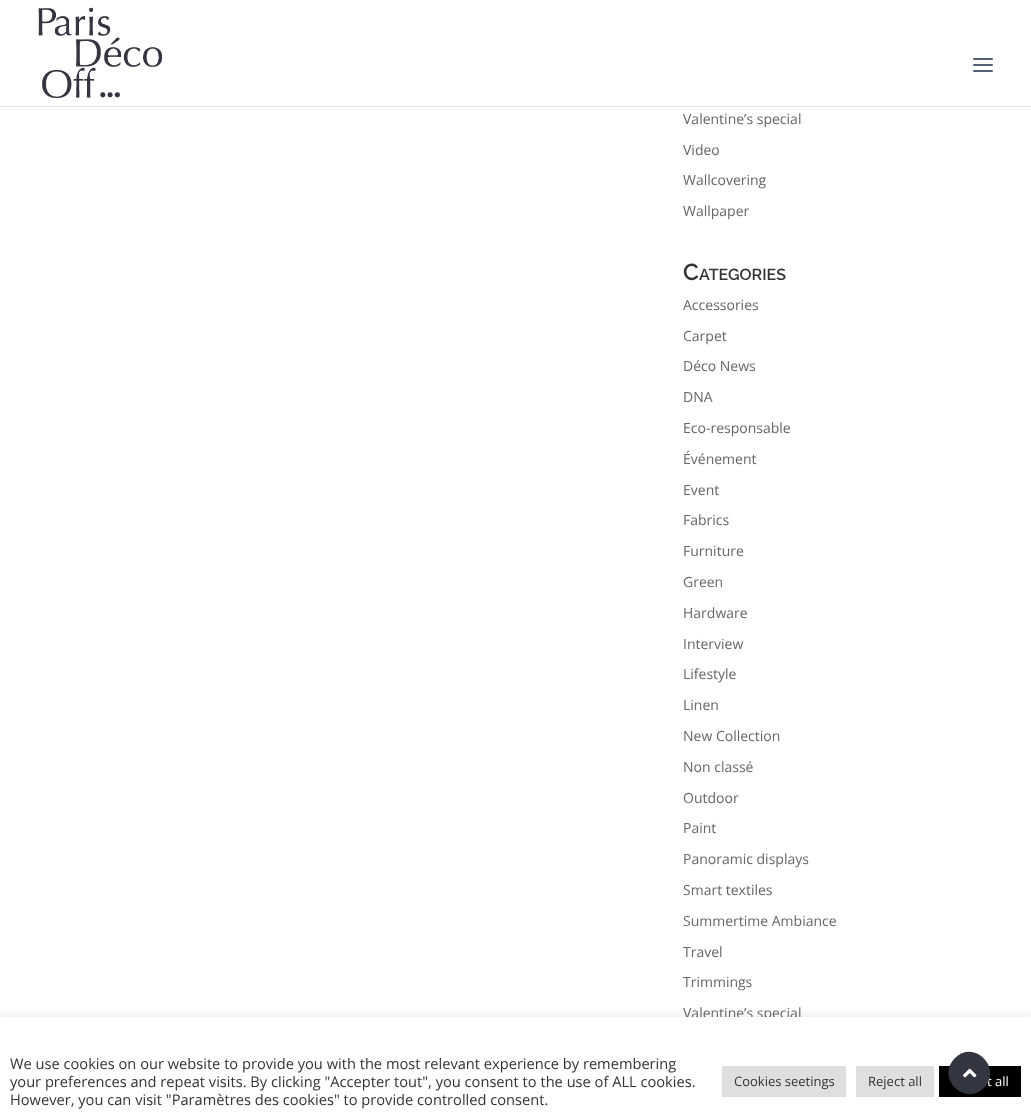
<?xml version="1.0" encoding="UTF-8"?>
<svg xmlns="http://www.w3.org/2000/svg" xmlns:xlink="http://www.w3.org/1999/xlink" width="1031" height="1120">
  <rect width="100%" height="100%" fill="#ffffff" />
  <rect y="106" width="1031" height="1" fill="#e6e6e6" />
  <image x="38" y="7" width="124" height="91" xlink:href="image1.png" />
  <image x="973" y="58" width="20" height="14" xlink:href="image2.png" />
  <rect y="1016" width="1031" height="103" fill="#acabab" fill-opacity="0.3" filter="blur(5px)" />
  <text x="683" y="124" style="font-family: Open Sans; font-size: 14px; fill: #666666">Valentine’s special</text>
  <text x="683" y="155" style="font-family: Open Sans; font-size: 14px; fill: #666666">Video</text>
  <text x="683" y="185" style="font-family: Open Sans; font-size: 14px; fill: #666666">Wallcovering</text>
  <text x="683" y="216" style="font-family: Open Sans; font-size: 14px; fill: #666666">Wallpaper</text>
  <text x="683" y="280" style="font-family: Raleway; font-size: 23px; font-weight: 600; fill: #333333">C</text>
  <text x="699" y="280" style="font-family: Raleway; font-size: 16px; font-weight: 600; fill: #333333">ATEGORIES</text>
  <text x="683" y="310" style="font-family: Open Sans; font-size: 14px; fill: #666666">Accessories</text>
  <text x="683" y="341" style="font-family: Open Sans; font-size: 14px; fill: #666666">Carpet</text>
  <text x="683" y="371" style="font-family: Open Sans; font-size: 14px; fill: #666666">Déco News</text>
  <text x="683" y="402" style="font-family: Open Sans; font-size: 14px; fill: #666666">DNA</text>
  <text x="683" y="433" style="font-family: Open Sans; font-size: 14px; fill: #666666">Eco-responsable</text>
  <text x="683" y="464" style="font-family: Open Sans; font-size: 14px; fill: #666666">Événement</text>
  <text x="683" y="495" style="font-family: Open Sans; font-size: 14px; fill: #666666">Event</text>
  <text x="683" y="525" style="font-family: Open Sans; font-size: 14px; fill: #666666">Fabrics</text>
  <text x="683" y="556" style="font-family: Open Sans; font-size: 14px; fill: #666666">Furniture</text>
  <text x="683" y="587" style="font-family: Open Sans; font-size: 14px; fill: #666666">Green</text>
  <text x="683" y="618" style="font-family: Open Sans; font-size: 14px; fill: #666666">Hardware</text>
  <text x="683" y="649" style="font-family: Open Sans; font-size: 14px; fill: #666666">Interview</text>
  <text x="683" y="679" style="font-family: Open Sans; font-size: 14px; fill: #666666">Lifestyle</text>
  <text x="683" y="710" style="font-family: Open Sans; font-size: 14px; fill: #666666">Linen</text>
  <text x="683" y="741" style="font-family: Open Sans; font-size: 14px; fill: #666666">New Collection</text>
  <text x="683" y="772" style="font-family: Open Sans; font-size: 14px; fill: #666666">Non classé</text>
  <text x="683" y="803" style="font-family: Open Sans; font-size: 14px; fill: #666666">Outdoor</text>
  <text x="683" y="833" style="font-family: Open Sans; font-size: 14px; fill: #666666">Paint</text>
  <text x="683" y="864" style="font-family: Open Sans; font-size: 14px; fill: #666666">Panoramic displays</text>
  <text x="683" y="895" style="font-family: Open Sans; font-size: 14px; fill: #666666">Smart textiles</text>
  <text x="683" y="926" style="font-family: Open Sans; font-size: 14px; fill: #666666">Summertime Ambiance</text>
  <text x="683" y="957" style="font-family: Open Sans; font-size: 14px; fill: #666666">Travel</text>
  <text x="683" y="987" style="font-family: Open Sans; font-size: 14px; fill: #666666">Trimmings</text>
  <text x="683" y="1018" style="font-family: Open Sans; font-size: 14px; fill: #666666">Valentine’s special</text>
  <rect y="1017" width="1031" height="103" fill="#ffffff" />
  <text x="10" y="1069" style="font-family: Open Sans; font-size: 14.65px; fill: #333333">We use cookies on our website to provide you with the most relevant experience by remembering</text>
  <text x="10" y="1087" style="font-family: Open Sans; font-size: 14.65px; fill: #333333">your preferences and repeat visits. By clicking "Accepter tout", you consent to the use of ALL cookies.</text>
  <text x="10" y="1105" style="font-family: Open Sans; font-size: 14.65px; fill: #333333">However, you can visit "Paramètres des cookies" to provide controlled consent.</text>
  <rect x="722" y="1066" width="124" height="31" fill="#dedfe0" />
  <text x="734" y="1086" style="font-family: Open Sans; font-size: 13px; fill: #333333">Cookies seetings</text>
  <rect x="856" y="1066" width="78" height="31" fill="#dedfe0" />
  <text x="868" y="1086" style="font-family: Open Sans; font-size: 13px; fill: #333333">Reject all</text>
  <rect x="939" y="1066" width="82" height="31" fill="#000000" />
  <text x="987" y="1086" style="font-family: Open Sans; font-size: 13px; fill: #ffffff">t all</text>
  <path d="M 955 1058 c 19 -19 48 10 29 30 c -19 19 -49 -10 -29 -30 z" fill="#333640" />
  <image x="963" y="1068" width="14" height="10" xlink:href="image3.png" />
</svg>
